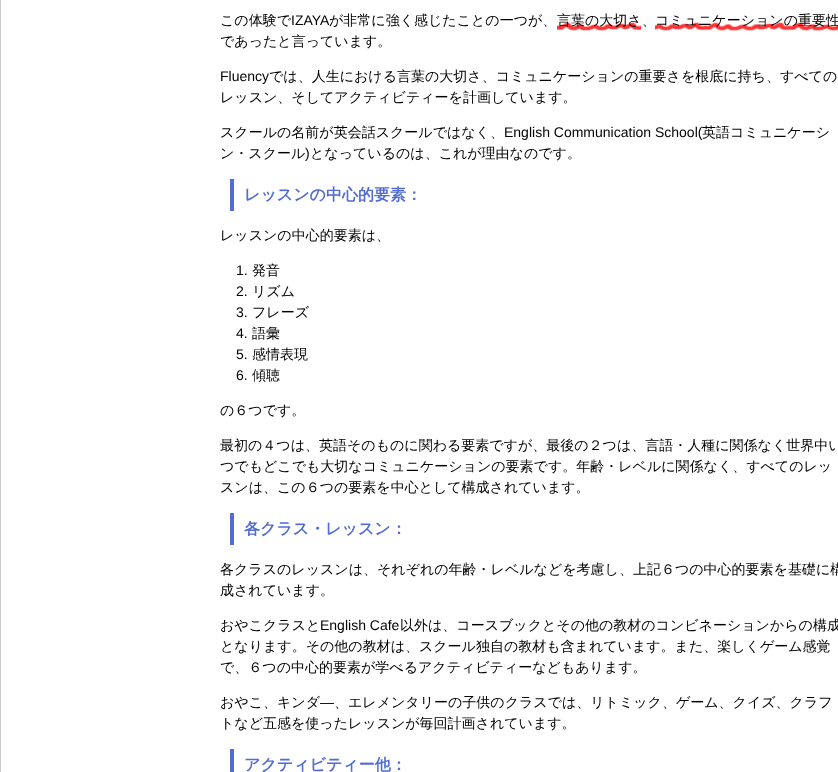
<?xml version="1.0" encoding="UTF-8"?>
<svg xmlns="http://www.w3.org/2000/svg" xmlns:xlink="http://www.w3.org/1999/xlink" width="838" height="772">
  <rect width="100%" height="100%" fill="#ffffff" />
  <rect x="0.5" y="-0.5" width="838" height="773" fill="none" stroke="#cccccc" />
  <image x="557" y="22" width="84" height="9" xlink:href="image1.png" />
  <image x="655" y="22" width="183" height="9" xlink:href="image2.png" />
  <rect x="230" y="179" width="4" height="32" fill="#536cd2" />
  <rect x="230" y="513" width="4" height="32" fill="#536cd2" />
  <rect x="230" y="749" width="4" height="23" fill="#536cd2" />
  <text x="220" y="25" style="font-family: WenQuanYi Zen Hei; font-size: 14px; font-weight: 500; fill: #000000">この体験で</text>
  <text x="291" y="25" style="font-family: Liberation Sans; font-size: 14px; fill: #000000">IZAYA</text>
  <text x="329" y="25" style="font-family: WenQuanYi Zen Hei; font-size: 14px; font-weight: 500; fill: #000000">が非常に強く感じたことの一つが、</text>
  <text x="557" y="25" style="font-family: WenQuanYi Zen Hei; font-size: 14px; font-weight: 500; fill: #000000">言葉の大切さ、</text>
  <text x="655" y="25" style="font-family: WenQuanYi Zen Hei; font-size: 14px; font-weight: 500; fill: #000000">コミュニケーションの重要性</text>
  <text x="220" y="46" style="font-family: WenQuanYi Zen Hei; font-size: 14px; font-weight: 500; fill: #000000">であったと言っています。</text>
  <text x="220" y="81" style="font-family: Liberation Sans; font-size: 14px; fill: #000000">Fluency</text>
  <text x="269" y="81" style="font-family: WenQuanYi Zen Hei; font-size: 14px; font-weight: 500; fill: #000000">では、人生における言葉の大切さ、コミュニケーションの重要さを根底に持ち、すべての</text>
  <text x="220" y="102" style="font-family: WenQuanYi Zen Hei; font-size: 14px; font-weight: 500; fill: #000000">レッスン、そしてアクティビティーを計画しています。</text>
  <text x="220" y="137" style="font-family: WenQuanYi Zen Hei; font-size: 14px; font-weight: 500; fill: #000000">スクールの名前が英会話スクールではなく、</text>
  <text x="504" y="137" style="font-family: Liberation Sans; font-size: 14px; fill: #000000">English Communication School(</text>
  <text x="702" y="137" style="font-family: WenQuanYi Zen Hei; font-size: 14px; font-weight: 500; fill: #000000">英語コミュニケーシ</text>
  <text x="220" y="158" style="font-family: WenQuanYi Zen Hei; font-size: 14px; font-weight: 500; fill: #000000">ン・スクール</text>
  <text x="305" y="158" style="font-family: Liberation Sans; font-size: 14px; fill: #000000">)</text>
  <text x="310" y="158" style="font-family: WenQuanYi Zen Hei; font-size: 14px; font-weight: 500; fill: #000000">となっているのは、これが理由なのです。</text>
  <text x="244" y="200" style="font-family: WenQuanYi Zen Hei; font-size: 16px; font-weight: bold; fill: #536cd2">レッスンの中心的要素：</text>
  <text x="220" y="240" style="font-family: WenQuanYi Zen Hei; font-size: 14px; font-weight: 500; fill: #000000">レッスンの中心的要素は、</text>
  <text x="236" y="275" style="font-family: Liberation Sans; font-size: 14px; fill: #000000">1.</text>
  <text x="252" y="275" style="font-family: WenQuanYi Zen Hei; font-size: 14px; font-weight: 500; fill: #000000">発音</text>
  <text x="236" y="296" style="font-family: Liberation Sans; font-size: 14px; fill: #000000">2.</text>
  <text x="252" y="296" style="font-family: WenQuanYi Zen Hei; font-size: 14px; font-weight: 500; fill: #000000">リズム</text>
  <text x="236" y="317" style="font-family: Liberation Sans; font-size: 14px; fill: #000000">3.</text>
  <text x="252" y="317" style="font-family: WenQuanYi Zen Hei; font-size: 14px; font-weight: 500; fill: #000000">フレーズ</text>
  <text x="236" y="338" style="font-family: Liberation Sans; font-size: 14px; fill: #000000">4.</text>
  <text x="252" y="338" style="font-family: WenQuanYi Zen Hei; font-size: 14px; font-weight: 500; fill: #000000">語彙</text>
  <text x="236" y="359" style="font-family: Liberation Sans; font-size: 14px; fill: #000000">5.</text>
  <text x="252" y="359" style="font-family: WenQuanYi Zen Hei; font-size: 14px; font-weight: 500; fill: #000000">感情表現</text>
  <text x="236" y="380" style="font-family: Liberation Sans; font-size: 14px; fill: #000000">6.</text>
  <text x="252" y="380" style="font-family: WenQuanYi Zen Hei; font-size: 14px; font-weight: 500; fill: #000000">傾聴</text>
  <text x="220" y="415" style="font-family: WenQuanYi Zen Hei; font-size: 14px; font-weight: 500; fill: #000000">の６つです。</text>
  <text x="220" y="450" style="font-family: WenQuanYi Zen Hei; font-size: 14px; font-weight: 500; fill: #000000">最初の４つは、英語そのものに関わる要素ですが、最後の２つは、言語・人種に関係なく世界中い</text>
  <text x="220" y="471" style="font-family: WenQuanYi Zen Hei; font-size: 14px; font-weight: 500; fill: #000000">つでもどこでも大切なコミュニケーションの要素です。年齢・レベルに関係なく、すべてのレッ</text>
  <text x="220" y="492" style="font-family: WenQuanYi Zen Hei; font-size: 14px; font-weight: 500; fill: #000000">スンは、この６つの要素を中心として構成されています。</text>
  <text x="244" y="534" style="font-family: WenQuanYi Zen Hei; font-size: 16px; font-weight: bold; fill: #536cd2">各クラス・レッスン：</text>
  <text x="220" y="574" style="font-family: WenQuanYi Zen Hei; font-size: 14px; font-weight: 500; fill: #000000">各クラスのレッスンは、それぞれの年齢・レベルなどを考慮し、上記６つの中心的要素を基礎に構</text>
  <text x="220" y="595" style="font-family: WenQuanYi Zen Hei; font-size: 14px; font-weight: 500; fill: #000000">成されています。</text>
  <text x="220" y="630" style="font-family: WenQuanYi Zen Hei; font-size: 14px; font-weight: 500; fill: #000000">おやこクラスと</text>
  <text x="320" y="630" style="font-family: Liberation Sans; font-size: 14px; fill: #000000">English Cafe</text>
  <text x="400" y="630" style="font-family: WenQuanYi Zen Hei; font-size: 14px; font-weight: 500; fill: #000000">以外は、コースブックとその他の教材のコンビネーションからの構成</text>
  <text x="220" y="651" style="font-family: WenQuanYi Zen Hei; font-size: 14px; font-weight: 500; fill: #000000">となります。その他の教材は、スクール独自の教材も含まれています。また、楽しくゲーム感覚</text>
  <text x="220" y="672" style="font-family: WenQuanYi Zen Hei; font-size: 14px; font-weight: 500; fill: #000000">で、６つの中心的要素が学べるアクティビティーなどもあります。</text>
  <text x="220" y="707" style="font-family: WenQuanYi Zen Hei; font-size: 14px; font-weight: 500; fill: #000000">おやこ、キンダ</text>
  <text x="320" y="707" style="font-family: Liberation Sans; font-size: 14px; fill: #000000">―</text>
  <text x="334" y="707" style="font-family: WenQuanYi Zen Hei; font-size: 14px; font-weight: 500; fill: #000000">、エレメンタリーの子供のクラスでは、リトミック、ゲーム、クイズ、クラフ</text>
  <text x="220" y="728" style="font-family: WenQuanYi Zen Hei; font-size: 14px; font-weight: 500; fill: #000000">トなど五感を使ったレッスンが毎回計画されています。</text>
  <text x="244" y="770" style="font-family: WenQuanYi Zen Hei; font-size: 16px; font-weight: bold; fill: #536cd2">アクティビティー他：</text>
</svg>
